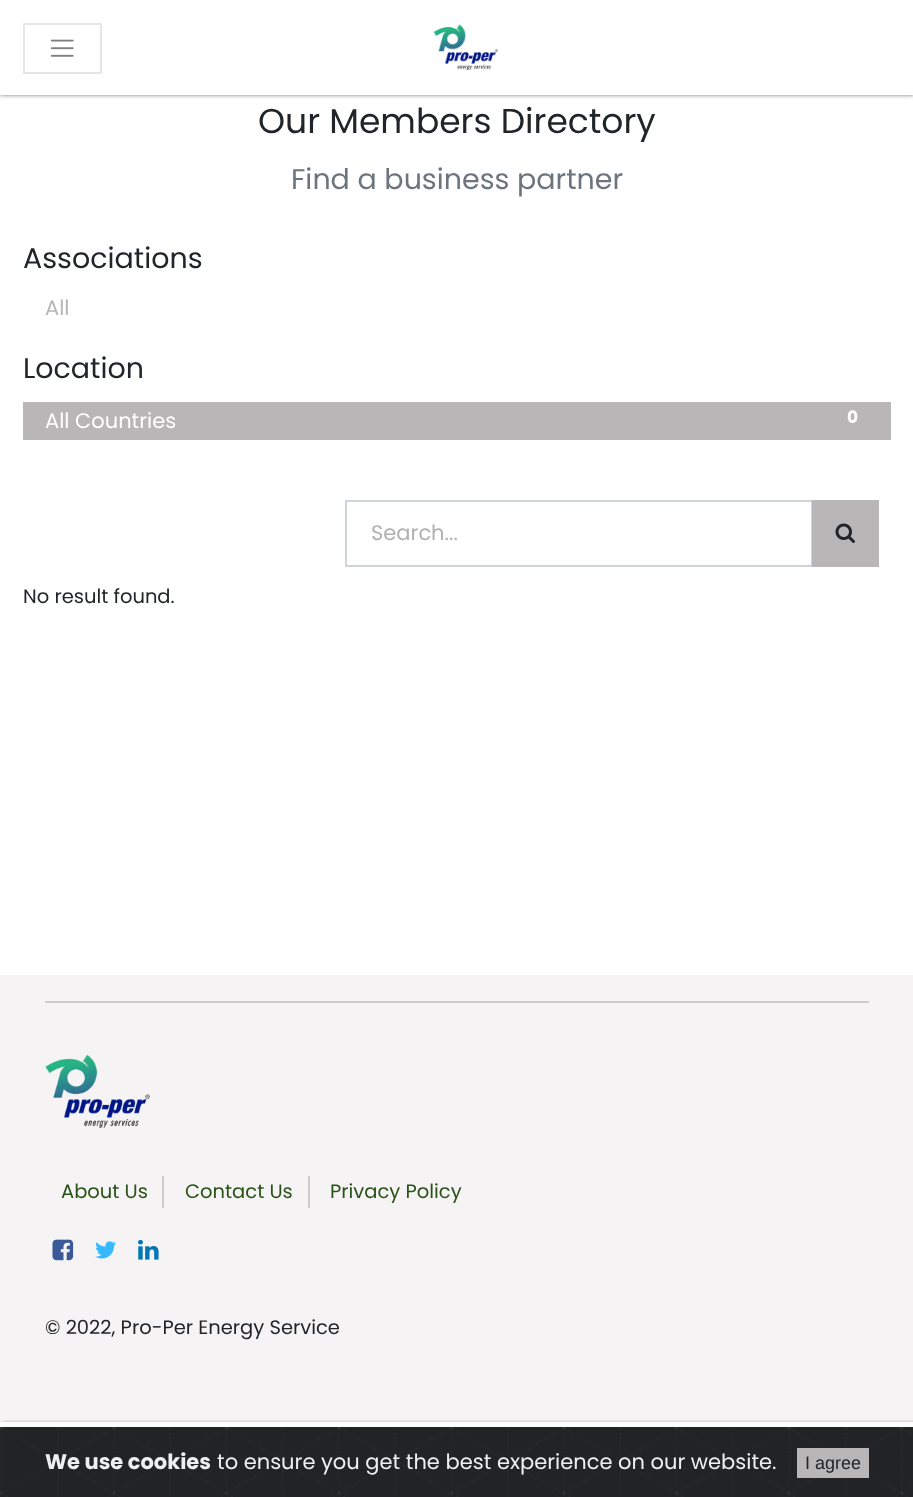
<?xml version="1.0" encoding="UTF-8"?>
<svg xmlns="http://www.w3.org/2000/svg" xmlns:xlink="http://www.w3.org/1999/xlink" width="913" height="1497">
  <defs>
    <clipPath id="clip1"><rect x="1" y="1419" width="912" height="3" /></clipPath>
  </defs>
  <rect width="100%" height="100%" fill="#ffffff" />
  <rect width="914" height="95" fill="#757575" filter="blur(2px)" />
  <rect width="913" height="95" fill="#ffffff" />
  <rect x="24" y="24" width="77" height="49" fill="none" stroke="#e6e6e6" stroke-width="2" />
  <image x="50" y="39" width="24" height="18" xlink:href="image1.png" />
  <image x="433" y="24" width="65" height="46" xlink:href="image2.png" />
  <rect y="975" width="913" height="447" fill="#f5f3f3" />
  <g clip-path="url(#clip1)">
    <rect x="3" y="1422" width="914" height="75" fill="#ababab" filter="blur(1.5px)" />
  </g>
  <rect x="23" y="402" width="868" height="38" fill="#b8b6b6" />
  <rect x="346" y="501" width="466" height="65" fill="none" stroke="#ced4da" stroke-width="2" />
  <rect x="812" y="500" width="67" height="67" fill="#b8b6b6" />
  <image x="835" y="523" width="20" height="20" xlink:href="image3.png" />
  <rect x="45" y="1001" width="824" height="2" fill="#cccccc" />
  <image x="45" y="1054" width="105" height="74" xlink:href="image4.png" />
  <rect x="162" y="1176" width="2" height="32" fill="#cccccc" />
  <rect x="308" y="1176" width="2" height="32" fill="#cccccc" />
  <image x="52" y="1239" width="22" height="22" xlink:href="image5.png" />
  <image x="95" y="1241" width="21" height="18" xlink:href="image6.png" />
  <image x="138" y="1239" width="21" height="21" xlink:href="image7.png" />
  <rect x="912" y="1427" width="1" height="70" fill="#212327" />
  <image x="0" y="1427" width="912" height="70" xlink:href="image8.png" />
  <rect x="797" y="1448" width="72" height="30" fill="#b8b6b6" />
  <text x="258" y="133" style="font-family: Poppins; font-size: 34.5px; fill: #212529">Our Members Directory</text>
  <text x="291" y="189" style="font-family: Poppins; font-size: 28.5px; fill: #6c757d">Find a business partner</text>
  <text x="23" y="268" style="font-family: Poppins; font-size: 28.5px; fill: #212529">Associations</text>
  <text x="45" y="315" style="font-family: Poppins; font-size: 21px; fill: #b8b6b6">All</text>
  <text x="23" y="378" style="font-family: Poppins; font-size: 28.5px; fill: #212529">Location</text>
  <text x="45" y="428" style="font-family: Poppins; font-size: 21px; fill: #ffffff">All Countries</text>
  <text x="847" y="423" style="font-family: Poppins; font-size: 17px; font-weight: bold; fill: #ffffff">0</text>
  <text x="371" y="540" style="font-family: Poppins; font-size: 21px; fill: #b1b1b1">Search...</text>
  <text x="23" y="603" style="font-family: Poppins; font-size: 19.5px; fill: #212529">No result found.</text>
  <text x="61" y="1198" style="font-family: Poppins; font-size: 19.5px; fill: #295218">About Us</text>
  <text x="185" y="1198" style="font-family: Poppins; font-size: 19.5px; fill: #295218">Contact Us</text>
  <text x="330" y="1198" style="font-family: Poppins; font-size: 19.5px; fill: #295218">Privacy Policy</text>
  <text x="45" y="1334" style="font-family: Poppins; font-size: 19.5px; fill: #212529">© 2022, Pro-Per Energy Service</text>
  <text x="45" y="1469" style="font-family: Poppins; font-size: 21px; font-weight: bold; fill: #ecf0f1">We use cookies</text>
  <text x="217" y="1469" style="font-family: Poppins; font-size: 21px; fill: #ecf0f1">to ensure you get the best experience on our website.</text>
  <text x="805" y="1469" style="font-family: Liberation Sans; font-size: 18px; fill: #212529">I agree</text>
</svg>
